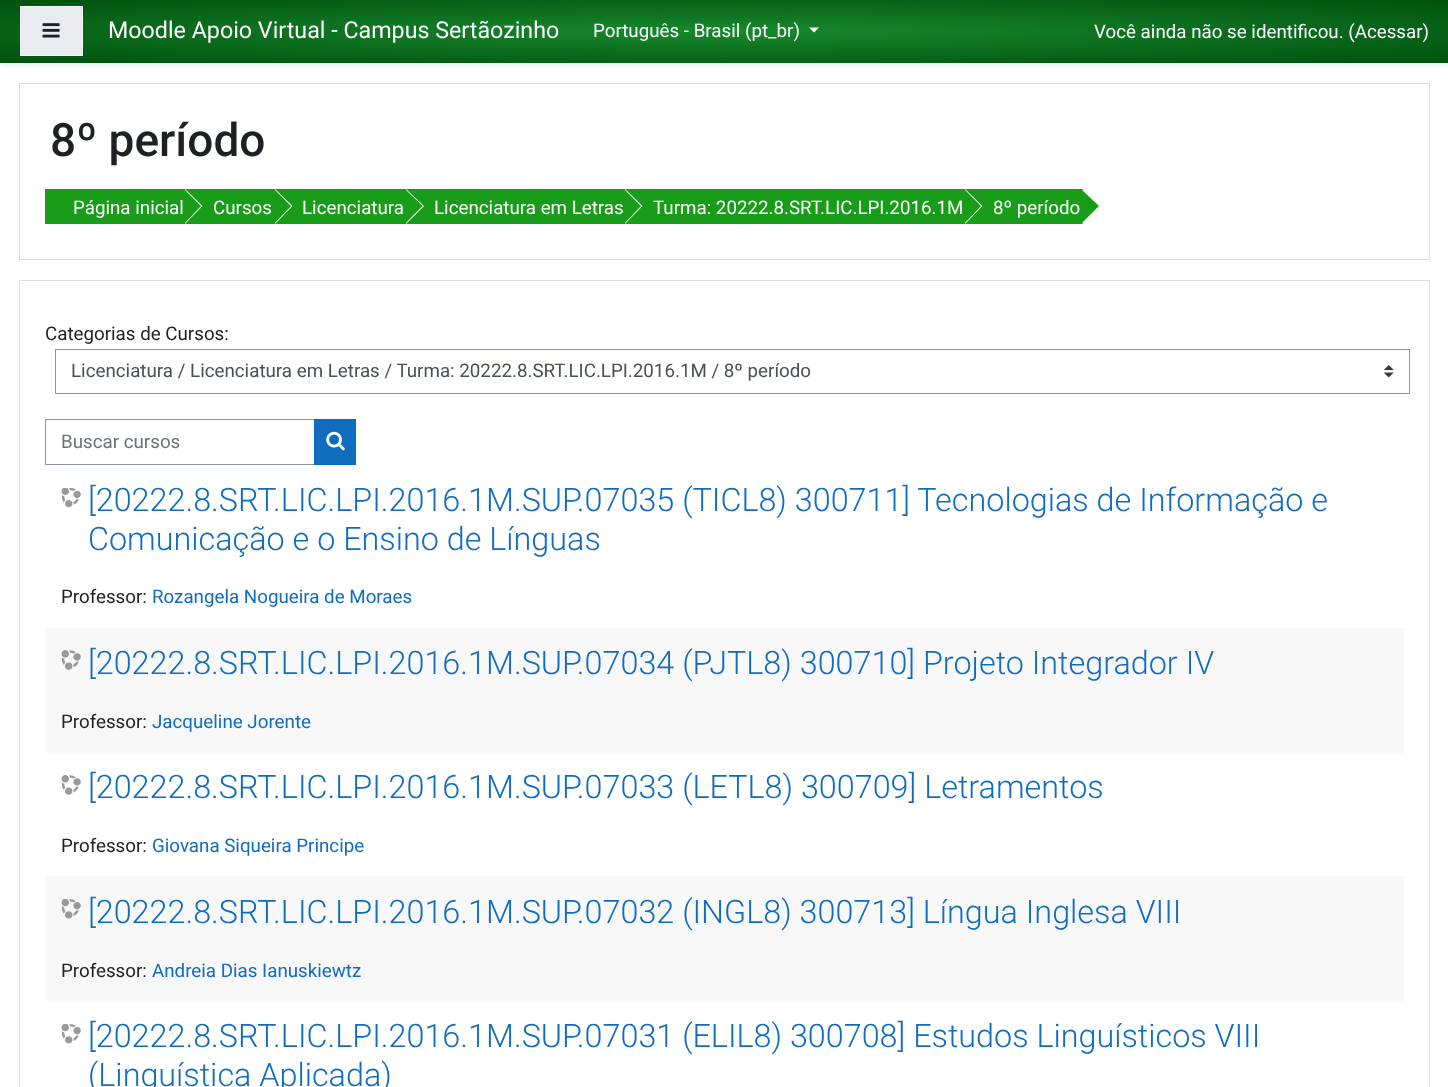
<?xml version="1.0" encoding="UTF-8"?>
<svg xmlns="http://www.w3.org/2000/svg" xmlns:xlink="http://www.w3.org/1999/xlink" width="1448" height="1087">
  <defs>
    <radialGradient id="g1" gradientUnits="userSpaceOnUse" cx="0" cy="0" r="1" gradientTransform="matrix(1024 0 0 44 724 31)"><stop offset="0.01" stop-color="#17882c" /><stop offset="1" stop-color="#00510f" /></radialGradient>
  </defs>
  <rect width="100%" height="100%" fill="#ffffff" />
  <rect y="3" width="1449" height="62" fill="#000000" fill-opacity="0.08" filter="blur(2.5px)" />
  <rect width="1448" height="63" fill="url(#g1)" />
  <rect x="20.5" y="6.5" width="62" height="49" fill="#e9ecef" stroke="#f8f9fa" />
  <image x="42" y="23" width="18" height="15" xlink:href="image1.png" />
  <path d="M 809 27.5 h 10 l -5 5 z" fill="#ffffff" />
  <rect x="19.5" y="83.5" width="1410" height="176" fill="none" stroke="#dfdfdf" />
  <rect x="45" y="189" width="1038" height="35" fill="#199c19" />
  <path d="M 185 224 v -35 l 17.5 17 z" fill="#ffffff" />
  <path d="M 184 224 v -35 l 17 17 z" fill="#199c19" />
  <path d="M 275 224 v -35 l 17.5 17 z" fill="#ffffff" />
  <path d="M 274 224 v -35 l 17 17 z" fill="#199c19" />
  <path d="M 406 224 v -35 l 18 17 z" fill="#ffffff" />
  <path d="M 405 224 v -35 l 17.5 17 z" fill="#199c19" />
  <path d="M 625 224 v -35 l 17.5 17 z" fill="#ffffff" />
  <path d="M 624 224 v -35 l 17 17 z" fill="#199c19" />
  <path d="M 965 224 v -35 l 17.5 17 z" fill="#ffffff" />
  <path d="M 964 224 v -35 l 17 17 z" fill="#199c19" />
  <path d="M 1082.5 224 v -35 l 17.5 17 z" fill="#ffffff" />
  <path d="M 1081 224 v -35 l 18 17 z" fill="#199c19" />
  <rect x="19.5" y="280.5" width="1410" height="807" fill="none" stroke="#dfdfdf" />
  <image x="1384" y="365" width="10" height="13" xlink:href="image2.png" />
  <rect x="55.5" y="349.5" width="1354" height="44" fill="none" stroke="#8f959e" />
  <rect x="45.5" y="419.5" width="269" height="45" fill="none" stroke="#8f959e" />
  <rect x="314" y="419" width="42" height="46" fill="#0f6cbf" />
  <image x="326" y="431" width="19" height="20" xlink:href="image3.png" />
  <image x="61" y="488" width="20" height="20" xlink:href="image4.png" />
  <rect x="45" y="628" width="1359" height="125" fill="#f8f8f8" />
  <image x="61" y="650" width="20" height="20" xlink:href="image5.png" />
  <image x="61" y="775" width="20" height="20" xlink:href="image6.png" />
  <rect x="45" y="876" width="1359" height="125" fill="#f8f8f8" />
  <image x="61" y="899" width="20" height="20" xlink:href="image7.png" />
  <image x="61" y="1024" width="20" height="20" xlink:href="image8.png" />
  <text x="108" y="38" style="font-family: Roboto; font-size: 23.25px; fill: #ffffff">Moodle Apoio Virtual - Campus Sertãozinho</text>
  <text x="593" y="37" style="font-family: Roboto; font-size: 18.75px; fill: #ffffff">Português - Brasil (pt_br)</text>
  <text x="1094" y="38" style="font-family: Roboto; font-size: 18.75px; fill: #ffffff">Você ainda não se identificou. (Acessar)</text>
  <text x="50" y="156" style="font-family: Roboto; font-size: 46px; font-weight: 500; fill: #1d2125">8º período</text>
  <text x="73" y="214" style="font-family: Roboto; font-size: 18.75px; fill: #ffffff">Página inicial</text>
  <text x="213" y="214" style="font-family: Roboto; font-size: 18.75px; fill: #ffffff">Cursos</text>
  <text x="302" y="214" style="font-family: Roboto; font-size: 18.75px; fill: #ffffff">Licenciatura</text>
  <text x="434" y="214" style="font-family: Roboto; font-size: 18.75px; fill: #ffffff">Licenciatura em Letras</text>
  <text x="653" y="214" style="font-family: Roboto; font-size: 18.75px; fill: #ffffff">Turma: 20222.8.SRT.LIC.LPI.2016.1M</text>
  <text x="993" y="214" style="font-family: Roboto; font-size: 18.75px; fill: #ffffff">8º período</text>
  <text x="45" y="340" style="font-family: Roboto; font-size: 18.75px; fill: #1d2125">Categorias de Cursos:</text>
  <text x="71" y="377" style="font-family: Roboto; font-size: 18.75px; fill: #495057">Licenciatura / Licenciatura em Letras / Turma: 20222.8.SRT.LIC.LPI.2016.1M / 8º período</text>
  <text x="61" y="448" style="font-family: Roboto; font-size: 18.75px; fill: #6a737b">Buscar cursos</text>
  <text x="88" y="511" style="font-family: Roboto; font-size: 32.35px; font-weight: 300; fill: #0f6cbf">[20222.8.SRT.LIC.LPI.2016.1M.SUP.07035 (TICL8) 300711] Tecnologias de Informação e</text>
  <text x="88" y="550" style="font-family: Roboto; font-size: 32.35px; font-weight: 300; fill: #0f6cbf">Comunicação e o Ensino de Línguas</text>
  <text x="61" y="603" style="font-family: Roboto; font-size: 18.75px; fill: #1d2125">Professor:</text>
  <text x="152" y="603" style="font-family: Roboto; font-size: 18.75px; fill: #0f6cbf">Rozangela Nogueira de Moraes</text>
  <text x="88" y="674" style="font-family: Roboto; font-size: 32.35px; font-weight: 300; fill: #0f6cbf">[20222.8.SRT.LIC.LPI.2016.1M.SUP.07034 (PJTL8) 300710] Projeto Integrador IV</text>
  <text x="61" y="728" style="font-family: Roboto; font-size: 18.75px; fill: #1d2125">Professor:</text>
  <text x="152" y="728" style="font-family: Roboto; font-size: 18.75px; fill: #0f6cbf">Jacqueline Jorente</text>
  <text x="88" y="798" style="font-family: Roboto; font-size: 32.35px; font-weight: 300; fill: #0f6cbf">[20222.8.SRT.LIC.LPI.2016.1M.SUP.07033 (LETL8) 300709] Letramentos</text>
  <text x="61" y="852" style="font-family: Roboto; font-size: 18.75px; fill: #1d2125">Professor:</text>
  <text x="152" y="852" style="font-family: Roboto; font-size: 18.75px; fill: #0f6cbf">Giovana Siqueira Principe</text>
  <text x="88" y="923" style="font-family: Roboto; font-size: 32.35px; font-weight: 300; fill: #0f6cbf">[20222.8.SRT.LIC.LPI.2016.1M.SUP.07032 (INGL8) 300713] Língua Inglesa VIII</text>
  <text x="61" y="977" style="font-family: Roboto; font-size: 18.75px; fill: #1d2125">Professor:</text>
  <text x="152" y="977" style="font-family: Roboto; font-size: 18.75px; fill: #0f6cbf">Andreia Dias Ianuskiewtz</text>
  <text x="88" y="1047" style="font-family: Roboto; font-size: 32.35px; font-weight: 300; fill: #0f6cbf">[20222.8.SRT.LIC.LPI.2016.1M.SUP.07031 (ELIL8) 300708] Estudos Linguísticos VIII</text>
  <text x="88" y="1086" style="font-family: Roboto; font-size: 32.35px; font-weight: 300; fill: #0f6cbf">(Linguística Aplicada)</text>
</svg>
